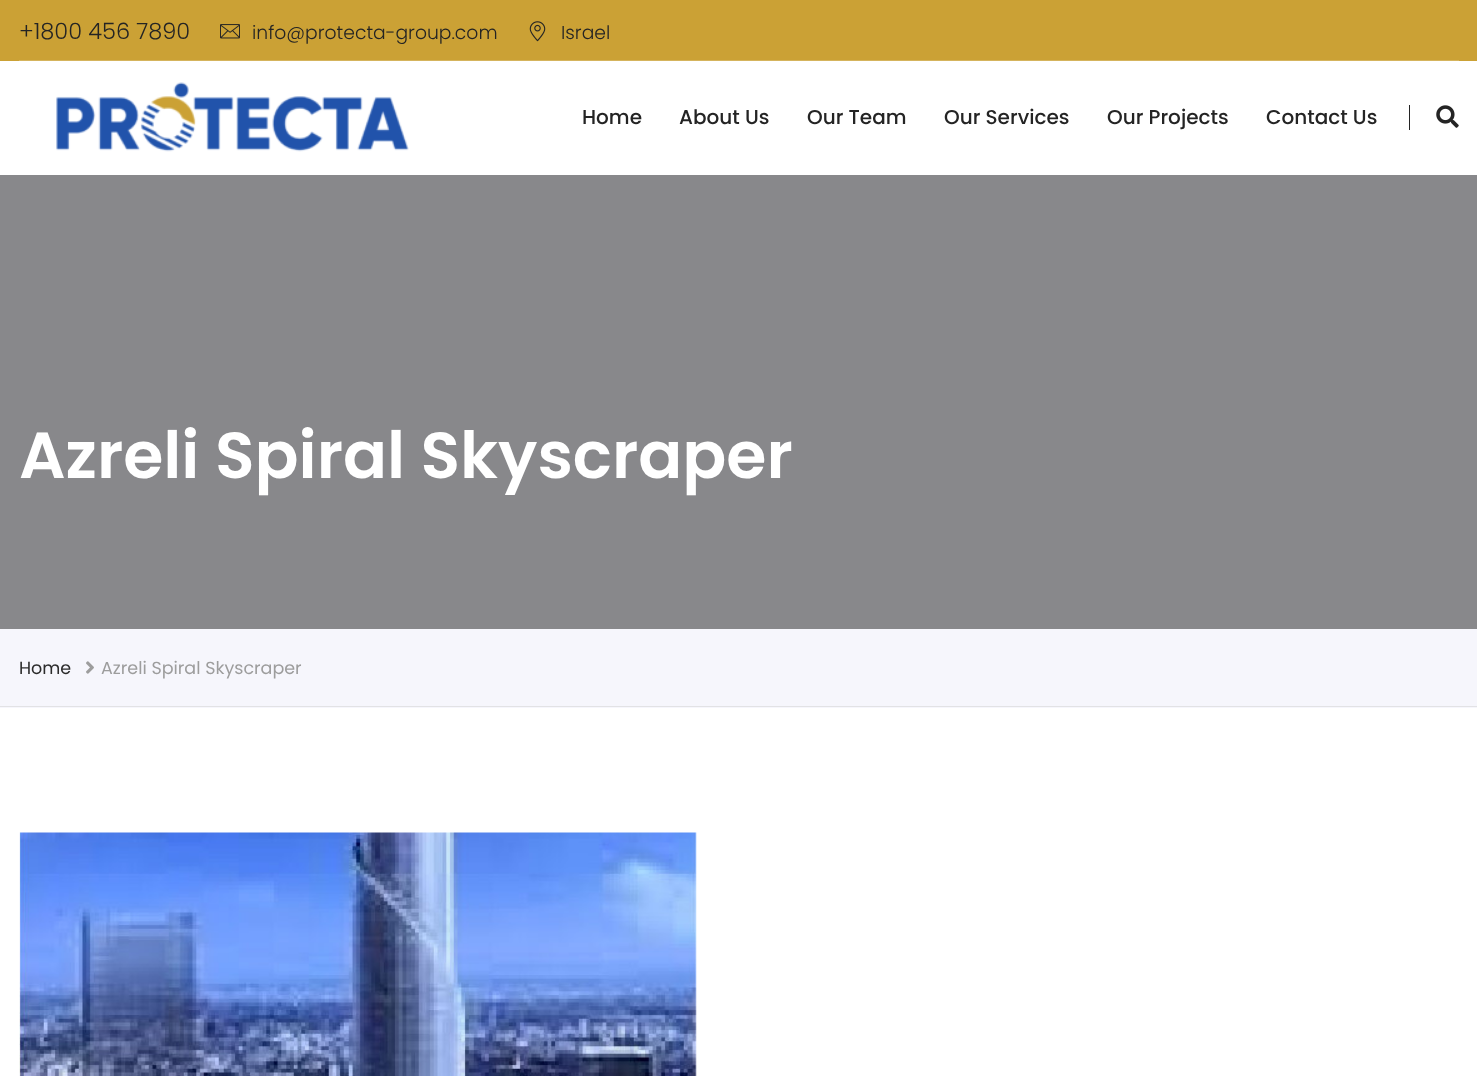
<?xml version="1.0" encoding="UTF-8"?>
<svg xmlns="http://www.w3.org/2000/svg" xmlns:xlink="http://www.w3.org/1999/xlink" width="1477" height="1076">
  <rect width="100%" height="100%" fill="#ffffff" />
  <rect width="1477" height="61" fill="#cba135" />
  <rect x="19" y="60" width="1440" height="1" fill="#d5b45d" />
  <image x="220" y="24" width="20" height="15" xlink:href="image1.png" />
  <image x="529" y="21" width="17" height="21" xlink:href="image2.png" />
  <image x="56" y="82" width="353" height="70" xlink:href="image3.png" />
  <rect x="1409" y="105" width="1" height="25" fill="#242424" />
  <image x="1436" y="105" width="23" height="23" xlink:href="image4.png" />
  <rect y="175" width="1477" height="454" fill="#88888b" />
  <rect y="629" width="1477" height="79" fill="#f6f6fc" />
  <rect y="706" width="1477" height="1" fill="#e2e2e5" />
  <image x="86" y="661" width="8" height="13" xlink:href="image5.png" />
  <image x="19" y="832" width="678" height="244" xlink:href="image6.png" />
  <text x="19" y="39" style="font-family: Poppins; font-size: 22.5px; font-weight: 300; fill: #242424">+1800 456 7890</text>
  <text x="252" y="39" style="font-family: Poppins; font-size: 18.75px; font-weight: 300; fill: #242424">info@protecta-group.com</text>
  <text x="561" y="39" style="font-family: Poppins; font-size: 18.75px; font-weight: 300; fill: #242424">Israel</text>
  <text x="582" y="124" style="font-family: Poppins; font-size: 20px; font-weight: 500; fill: #242424">Home</text>
  <text x="679" y="124" style="font-family: Poppins; font-size: 20px; font-weight: 500; fill: #242424">About Us</text>
  <text x="807" y="124" style="font-family: Poppins; font-size: 20px; font-weight: 500; fill: #242424">Our Team</text>
  <text x="944" y="124" style="font-family: Poppins; font-size: 20px; font-weight: 500; fill: #242424">Our Services</text>
  <text x="1107" y="124" style="font-family: Poppins; font-size: 20px; font-weight: 500; fill: #242424">Our Projects</text>
  <text x="1266" y="124" style="font-family: Poppins; font-size: 20px; font-weight: 500; fill: #242424">Contact Us</text>
  <text x="19" y="478" style="font-family: Poppins; font-size: 65px; font-weight: 600; fill: #ffffff">Azreli Spiral Skyscraper</text>
  <text x="19" y="674" style="font-family: Poppins; font-size: 17.5px; fill: #2c2c2c">Home</text>
  <text x="101" y="674" style="font-family: Poppins; font-size: 17.5px; fill: #9d9d9d">Azreli Spiral Skyscraper</text>
</svg>
